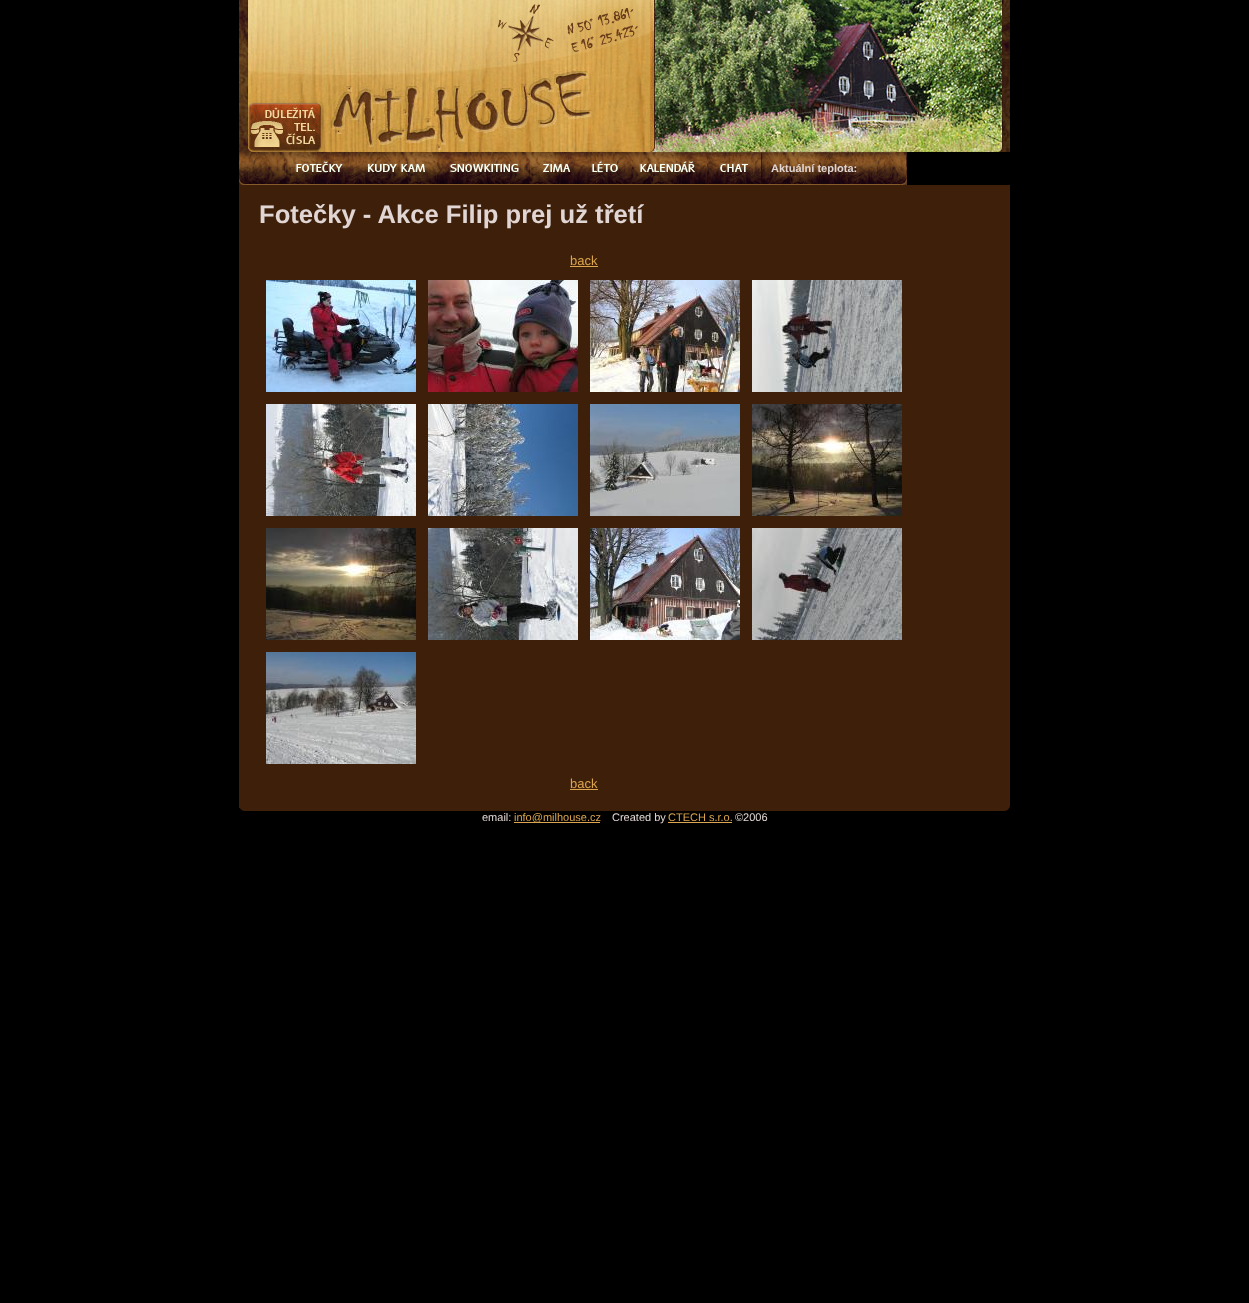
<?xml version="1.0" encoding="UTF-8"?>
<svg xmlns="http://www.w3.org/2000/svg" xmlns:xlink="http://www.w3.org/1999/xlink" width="1249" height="1303">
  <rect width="100%" height="100%" fill="#000000" />
  <image x="239" y="0" width="253" height="68" xlink:href="image1.png" />
  <image x="492" y="0" width="158" height="68" xlink:href="image2.png" />
  <image x="239" y="68" width="87" height="84" xlink:href="image3.png" />
  <image x="326" y="68" width="324" height="84" xlink:href="image4.png" />
  <image x="650" y="0" width="360" height="152" xlink:href="image5.png" />
  <image x="239" y="152" width="46" height="33" xlink:href="image6.png" />
  <image x="285" y="152" width="69" height="33" xlink:href="image7.png" />
  <image x="354" y="152" width="84" height="33" xlink:href="image8.png" />
  <image x="438" y="152" width="93" height="33" xlink:href="image9.png" />
  <image x="531" y="152" width="50" height="33" xlink:href="image10.png" />
  <image x="581" y="152" width="48" height="33" xlink:href="image11.png" />
  <image x="629" y="152" width="78" height="33" xlink:href="image12.png" />
  <image x="707" y="152" width="54" height="33" xlink:href="image13.png" />
  <image x="761" y="152" width="146" height="33" xlink:href="image14.png" />
  <rect x="794" y="185" width="216" height="621" fill="#3d1f0a" />
  <image x="239" y="806" width="771" height="5" xlink:href="image15.png" />
  <rect x="239" y="185" width="555" height="623" fill="#3d1f0a" />
  <rect x="570" y="266" width="28" height="1" fill="#dca54f" />
  <image x="266" y="280" width="150" height="112" xlink:href="image16.png" />
  <image x="428" y="280" width="150" height="112" xlink:href="image17.png" />
  <image x="590" y="280" width="150" height="112" xlink:href="image18.png" />
  <image x="752" y="280" width="150" height="112" xlink:href="image19.png" />
  <image x="266" y="404" width="150" height="112" xlink:href="image20.png" />
  <image x="428" y="404" width="150" height="112" xlink:href="image21.png" />
  <image x="590" y="404" width="150" height="112" xlink:href="image22.png" />
  <image x="752" y="404" width="150" height="112" xlink:href="image23.png" />
  <image x="266" y="528" width="150" height="112" xlink:href="image24.png" />
  <image x="428" y="528" width="150" height="112" xlink:href="image25.png" />
  <image x="590" y="528" width="150" height="112" xlink:href="image26.png" />
  <image x="752" y="528" width="150" height="112" xlink:href="image27.png" />
  <image x="266" y="652" width="150" height="112" xlink:href="image28.png" />
  <rect x="570" y="789" width="28" height="1" fill="#dca54f" />
  <rect x="514" y="822" width="86" height="1" fill="#dca54f" />
  <rect x="668" y="822" width="64" height="1" fill="#dca54f" />
  <text x="771" y="172" style="font-family: Liberation Sans; font-size: 11px; font-weight: bold; fill: #e1d6d4">Aktuální teplota:</text>
  <text x="259" y="223" style="font-family: Liberation Sans; font-size: 25.6px; font-weight: bold; fill: #e1d6d4">Fotečky - Akce Filip prej už třetí</text>
  <text x="570" y="265" style="font-family: Liberation Sans; font-size: 13px; fill: #dca54f">back</text>
  <text x="570" y="788" style="font-family: Liberation Sans; font-size: 13px; fill: #dca54f">back</text>
  <text x="482" y="821" style="font-family: Liberation Sans; font-size: 11px; fill: #e1d6d4">email:</text>
  <text x="514" y="821" style="font-family: Liberation Sans; font-size: 11px; fill: #dca54f">info@milhouse.cz</text>
  <text x="612" y="821" style="font-family: Liberation Sans; font-size: 11px; fill: #e1d6d4">Created by</text>
  <text x="668" y="821" style="font-family: Liberation Sans; font-size: 11px; fill: #dca54f">CTECH s.r.o.</text>
  <text x="735" y="821" style="font-family: Liberation Sans; font-size: 11px; fill: #e1d6d4">©2006</text>
</svg>
